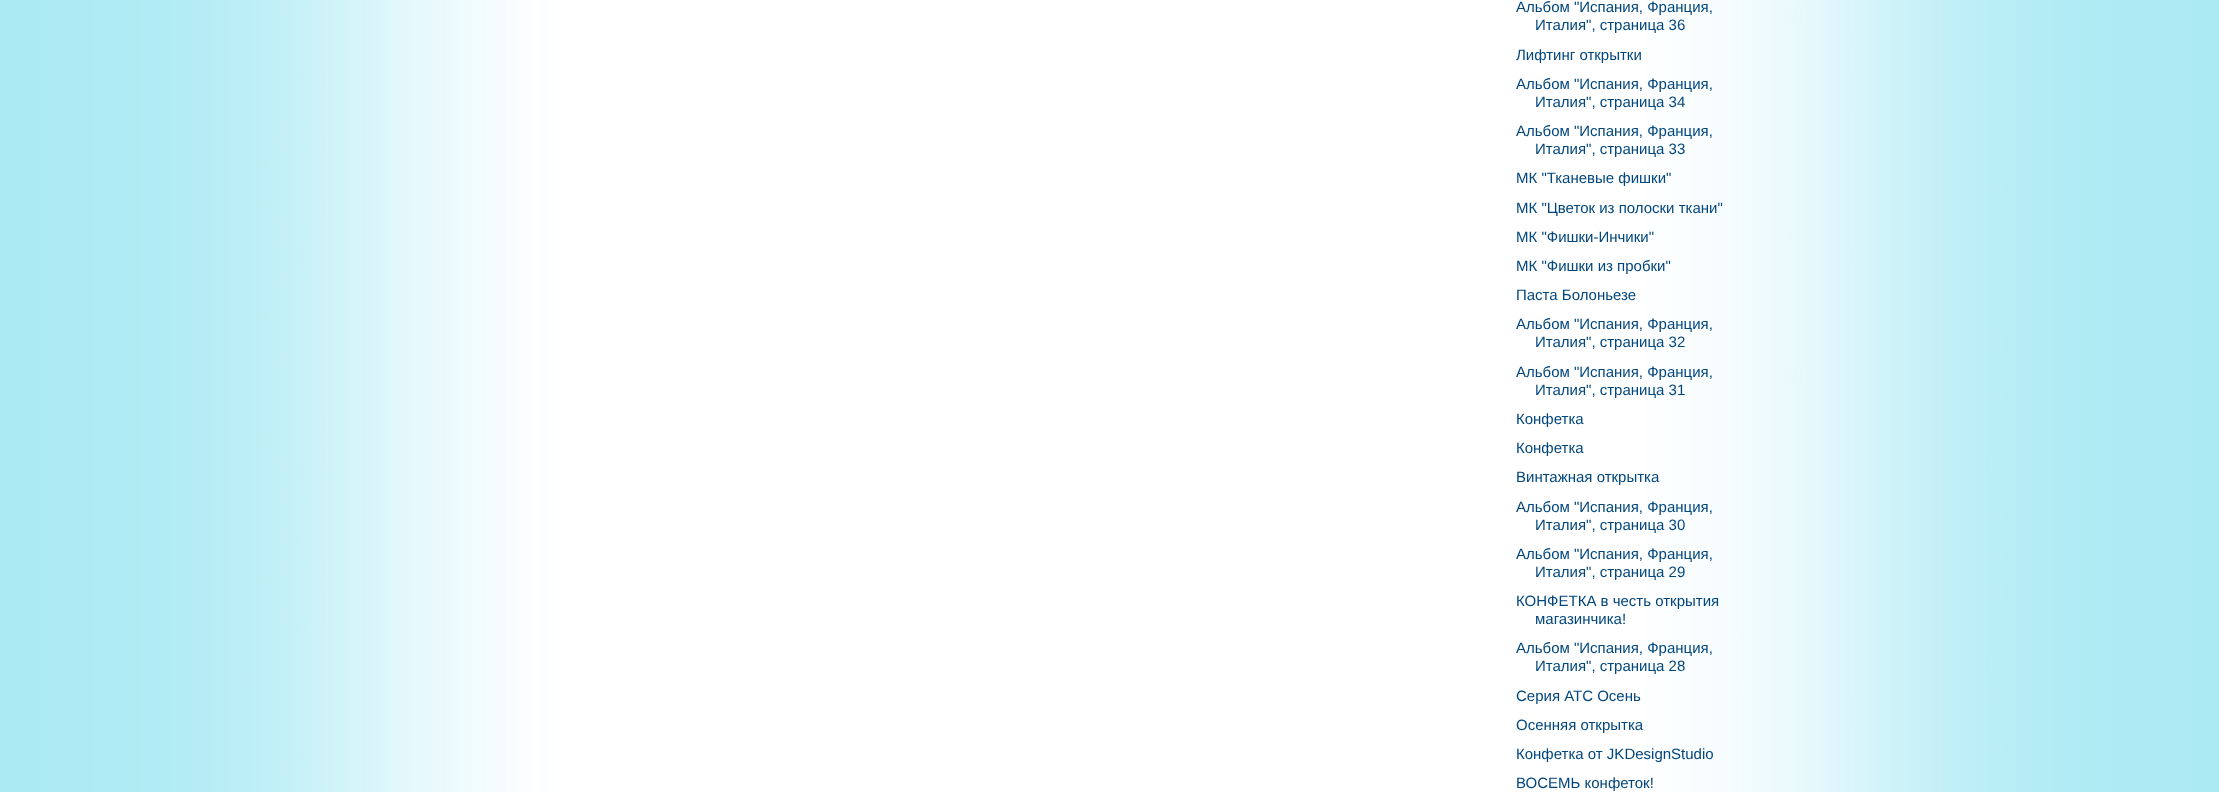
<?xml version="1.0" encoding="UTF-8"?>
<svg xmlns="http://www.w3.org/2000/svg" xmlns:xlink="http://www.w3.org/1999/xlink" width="2219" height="792">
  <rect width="100%" height="100%" fill="#ffffff" />
  <image x="0" y="0" width="2219" height="792" xlink:href="image1.png" />
  <text x="1516" y="12" style="font-family: Liberation Sans; font-size: 15px; fill: #01467d">Альбом "Испания, Франция,</text>
  <text x="1535" y="30" style="font-family: Liberation Sans; font-size: 15px; fill: #01467d">Италия", страница 36</text>
  <text x="1516" y="60" style="font-family: Liberation Sans; font-size: 15px; fill: #01467d">Лифтинг открытки</text>
  <text x="1516" y="89" style="font-family: Liberation Sans; font-size: 15px; fill: #01467d">Альбом "Испания, Франция,</text>
  <text x="1535" y="107" style="font-family: Liberation Sans; font-size: 15px; fill: #01467d">Италия", страница 34</text>
  <text x="1516" y="136" style="font-family: Liberation Sans; font-size: 15px; fill: #01467d">Альбом "Испания, Франция,</text>
  <text x="1535" y="154" style="font-family: Liberation Sans; font-size: 15px; fill: #01467d">Италия", страница 33</text>
  <text x="1516" y="183" style="font-family: Liberation Sans; font-size: 15px; fill: #01467d">МК "Тканевые фишки"</text>
  <text x="1516" y="213" style="font-family: Liberation Sans; font-size: 15px; fill: #01467d">МК "Цветок из полоски ткани"</text>
  <text x="1516" y="242" style="font-family: Liberation Sans; font-size: 15px; fill: #01467d">МК "Фишки-Инчики"</text>
  <text x="1516" y="271" style="font-family: Liberation Sans; font-size: 15px; fill: #01467d">МК "Фишки из пробки"</text>
  <text x="1516" y="300" style="font-family: Liberation Sans; font-size: 15px; fill: #01467d">Паста Болоньезе</text>
  <text x="1516" y="329" style="font-family: Liberation Sans; font-size: 15px; fill: #01467d">Альбом "Испания, Франция,</text>
  <text x="1535" y="347" style="font-family: Liberation Sans; font-size: 15px; fill: #01467d">Италия", страница 32</text>
  <text x="1516" y="377" style="font-family: Liberation Sans; font-size: 15px; fill: #01467d">Альбом "Испания, Франция,</text>
  <text x="1535" y="395" style="font-family: Liberation Sans; font-size: 15px; fill: #01467d">Италия", страница 31</text>
  <text x="1516" y="424" style="font-family: Liberation Sans; font-size: 15px; fill: #01467d">Конфетка</text>
  <text x="1516" y="453" style="font-family: Liberation Sans; font-size: 15px; fill: #01467d">Конфетка</text>
  <text x="1516" y="482" style="font-family: Liberation Sans; font-size: 15px; fill: #01467d">Винтажная открытка</text>
  <text x="1516" y="512" style="font-family: Liberation Sans; font-size: 15px; fill: #01467d">Альбом "Испания, Франция,</text>
  <text x="1535" y="530" style="font-family: Liberation Sans; font-size: 15px; fill: #01467d">Италия", страница 30</text>
  <text x="1516" y="559" style="font-family: Liberation Sans; font-size: 15px; fill: #01467d">Альбом "Испания, Франция,</text>
  <text x="1535" y="577" style="font-family: Liberation Sans; font-size: 15px; fill: #01467d">Италия", страница 29</text>
  <text x="1516" y="606" style="font-family: Liberation Sans; font-size: 15px; fill: #01467d">КОНФЕТКА в честь открытия</text>
  <text x="1535" y="624" style="font-family: Liberation Sans; font-size: 15px; fill: #01467d">магазинчика!</text>
  <text x="1516" y="653" style="font-family: Liberation Sans; font-size: 15px; fill: #01467d">Альбом "Испания, Франция,</text>
  <text x="1535" y="671" style="font-family: Liberation Sans; font-size: 15px; fill: #01467d">Италия", страница 28</text>
  <text x="1516" y="701" style="font-family: Liberation Sans; font-size: 15px; fill: #01467d">Серия АТС Осень</text>
  <text x="1516" y="730" style="font-family: Liberation Sans; font-size: 15px; fill: #01467d">Осенняя открытка</text>
  <text x="1516" y="759" style="font-family: Liberation Sans; font-size: 15px; fill: #01467d">Конфетка от JKDesignStudio</text>
  <text x="1516" y="788" style="font-family: Liberation Sans; font-size: 15px; fill: #01467d">ВОСЕМЬ конфеток!</text>
</svg>
